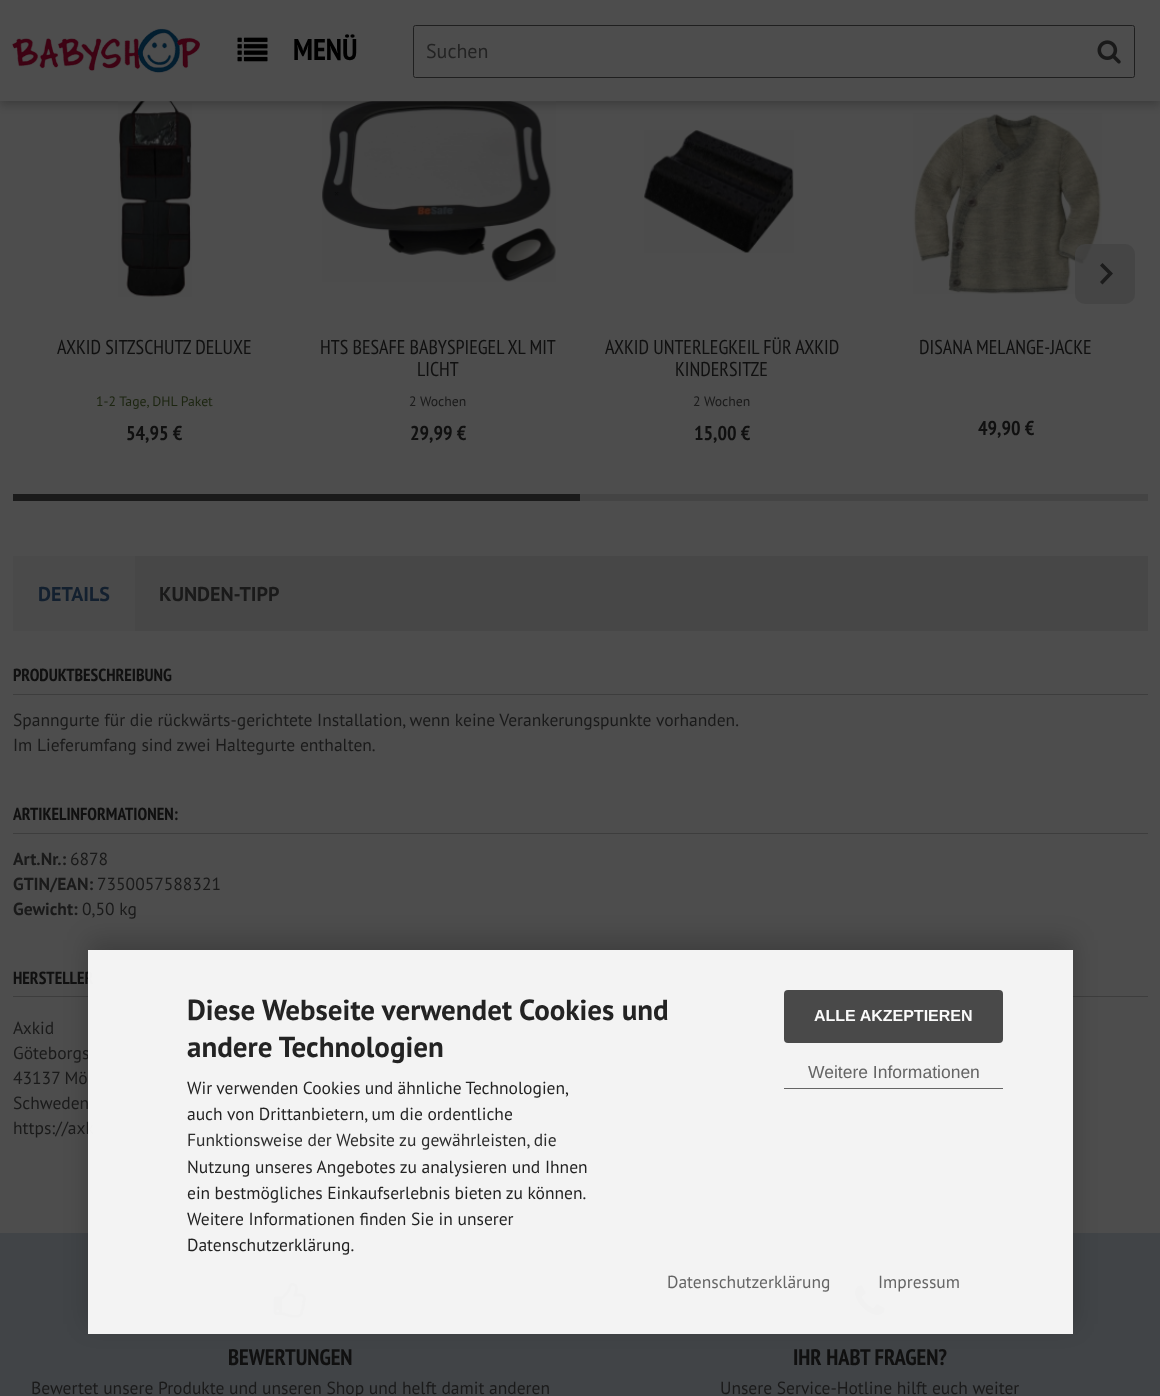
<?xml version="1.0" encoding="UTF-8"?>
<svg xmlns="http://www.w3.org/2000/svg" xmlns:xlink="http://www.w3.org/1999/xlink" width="1160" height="1396">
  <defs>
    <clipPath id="clip1"><path d="M 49 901 h 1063 v 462 h -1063 z m 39 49 h 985 v 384 h -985 z" clip-rule="evenodd" /></clipPath>
  </defs>
  <rect width="100%" height="100%" fill="#4d4d4d" />
  <image x="118" y="101" width="74" height="196" xlink:href="image4.png" />
  <image x="322" y="101" width="234" height="181" xlink:href="image5.png" />
  <image x="913" y="113" width="189" height="181" xlink:href="image7.png" />
  <rect y="4" width="1160" height="101" fill="#000000" fill-opacity="0.2" filter="blur(4px)" />
  <rect width="1160" height="101" fill="#4d4d4d" />
  <rect x="118" y="101" width="438" height="1" fill="#4d4d4d" fill-opacity="0.2" />
  <image x="12" y="28" width="188" height="45" xlink:href="image1.png" />
  <image x="237" y="37" width="31" height="25" xlink:href="image2.png" />
  <rect x="413.5" y="25.5" width="721" height="52" rx="2" fill="none" stroke="#1f1f1f" />
  <image x="1097" y="40" width="24" height="24" xlink:href="image3.png" />
  <rect x="1075" y="244" width="60" height="60" rx="10" fill="#444444" fill-opacity="0.8" />
  <path d="M 1102.5 263 l -2.5 2.5 l 8 8 l -8 8.5 l 2.5 2.5 l 10.5 -11 z" fill="#1c1c1c" />
  <image x="644" y="130" width="150" height="123" xlink:href="image6.png" />
  <rect x="13" y="494" width="567" height="7" fill="#1a1a1a" />
  <rect x="580" y="494" width="568" height="7" fill="#444444" />
  <rect x="135" y="556" width="1013" height="75" fill="#474747" />
  <rect x="13" y="556" width="122" height="75" fill="#4a4a4a" />
  <rect x="13" y="694" width="1135" height="1" fill="#3d3d3d" />
  <rect x="13" y="833" width="1135" height="1" fill="#3d3d3d" />
  <rect x="13" y="996" width="1135" height="1" fill="#3d3d3d" />
  <rect y="1233" width="1160" height="163" fill="#414447" />
  <image x="273" y="1282" width="33" height="36" xlink:href="image8.png" />
  <image x="855" y="1285" width="30" height="30" xlink:href="image9.png" />
  <g clip-path="url(#clip1)">
    <rect x="88" y="940" width="985" height="384" fill="#000000" fill-opacity="0.19" filter="blur(12.5px)" />
  </g>
  <text x="293" y="60" style="font-family: PT Sans Narrow; font-size: 30px; font-weight: bold; fill: #000000">MENÜ</text>
  <text x="426" y="58" style="font-family: PT Sans; font-size: 20px; fill: #232323">Suchen</text>
  <text x="57" y="354" style="font-family: PT Sans Narrow; font-size: 20px; fill: #101010">AXKID SITZSCHUTZ DELUXE</text>
  <text x="96" y="406" style="font-family: PT Sans; font-size: 13.75px; fill: #1c2510">1-2 Tage, DHL Paket</text>
  <text x="126" y="440" style="font-family: PT Sans Narrow; font-size: 20px; font-weight: bold; fill: #101010">54,95 €</text>
  <text x="320" y="354" style="font-family: PT Sans Narrow; font-size: 20px; fill: #101010">HTS BESAFE BABYSPIEGEL XL MIT</text>
  <text x="417" y="376" style="font-family: PT Sans Narrow; font-size: 20px; fill: #101010">LICHT</text>
  <text x="409" y="406" style="font-family: PT Sans; font-size: 13.75px; fill: #1a1a1a">2 Wochen</text>
  <text x="410" y="440" style="font-family: PT Sans Narrow; font-size: 20px; font-weight: bold; fill: #101010">29,99 €</text>
  <text x="605" y="354" style="font-family: PT Sans Narrow; font-size: 20px; fill: #101010">AXKID UNTERLEGKEIL FÜR AXKID</text>
  <text x="675" y="376" style="font-family: PT Sans Narrow; font-size: 20px; fill: #101010">KINDERSITZE</text>
  <text x="693" y="406" style="font-family: PT Sans; font-size: 13.75px; fill: #1a1a1a">2 Wochen</text>
  <text x="694" y="440" style="font-family: PT Sans Narrow; font-size: 20px; font-weight: bold; fill: #101010">15,00 €</text>
  <text x="919" y="354" style="font-family: PT Sans Narrow; font-size: 20px; fill: #101010">DISANA MELANGE-JACKE</text>
  <text x="978" y="435" style="font-family: PT Sans Narrow; font-size: 20px; font-weight: bold; fill: #101010">49,90 €</text>
  <text x="38" y="601" style="font-family: PT Sans; font-size: 20px; font-weight: bold; fill: #13202f">DETAILS</text>
  <text x="159" y="601" style="font-family: PT Sans; font-size: 20px; font-weight: bold; fill: #1a1a1a">KUNDEN-TIPP</text>
  <text x="13" y="681" style="font-family: PT Sans Narrow; font-size: 17.5px; font-weight: bold; fill: #101010">PRODUKTBESCHREIBUNG</text>
  <text x="13" y="726" style="font-family: PT Sans; font-size: 17.5px; fill: #1a1a1a">Spanngurte für die rückwärts-gerichtete Installation, wenn keine Verankerungspunkte vorhanden.</text>
  <text x="13" y="751" style="font-family: PT Sans; font-size: 17.5px; fill: #1a1a1a">Im Lieferumfang sind zwei Haltegurte enthalten.</text>
  <text x="13" y="820" style="font-family: PT Sans Narrow; font-size: 17.5px; font-weight: bold; fill: #101010">ARTIKELINFORMATIONEN:</text>
  <text x="13" y="865" style="font-family: PT Sans; font-size: 17.5px; font-weight: bold; fill: #1a1a1a">Art.Nr.:</text>
  <text x="70" y="865" style="font-family: PT Sans; font-size: 17.5px; fill: #1a1a1a">6878</text>
  <text x="13" y="890" style="font-family: PT Sans; font-size: 17.5px; font-weight: bold; fill: #1a1a1a">GTIN/EAN:</text>
  <text x="97" y="890" style="font-family: PT Sans; font-size: 17.5px; fill: #1a1a1a">7350057588321</text>
  <text x="13" y="915" style="font-family: PT Sans; font-size: 17.5px; font-weight: bold; fill: #1a1a1a">Gewicht:</text>
  <text x="82" y="915" style="font-family: PT Sans; font-size: 17.5px; fill: #1a1a1a">0,50 kg</text>
  <text x="13" y="984" style="font-family: PT Sans Narrow; font-size: 17.5px; font-weight: bold; fill: #101010">HERSTELLER</text>
  <text x="13" y="1034" style="font-family: PT Sans; font-size: 17.5px; fill: #1a1a1a">Axkid</text>
  <text x="13" y="1059" style="font-family: PT Sans; font-size: 17.5px; fill: #1a1a1a">Göteborgs</text>
  <text x="13" y="1084" style="font-family: PT Sans; font-size: 17.5px; fill: #1a1a1a">43137 Mö</text>
  <text x="13" y="1109" style="font-family: PT Sans; font-size: 17.5px; fill: #1a1a1a">Schweden</text>
  <text x="13" y="1134" style="font-family: PT Sans; font-size: 17.5px; fill: #1a1a1a">https://axk</text>
  <text x="228" y="1365" style="font-family: PT Sans Narrow; font-size: 22.5px; font-weight: bold; fill: #101010">BEWERTUNGEN</text>
  <text x="31" y="1394" style="font-family: PT Sans; font-size: 17.5px; fill: #1a1a1a">Bewertet unsere Produkte und unseren Shop und helft damit anderen</text>
  <text x="793" y="1365" style="font-family: PT Sans Narrow; font-size: 22.5px; font-weight: bold; fill: #101010">IHR HABT FRAGEN?</text>
  <text x="720" y="1394" style="font-family: PT Sans; font-size: 17.5px; fill: #1a1a1a">Unsere Service-Hotline hilft euch weiter</text>
  <rect x="88" y="950" width="985" height="384" fill="#f9f9f9" fill-opacity="0.97" />
  <text x="187" y="1020" style="font-family: PT Sans; font-size: 29px; font-weight: bold; fill: #232323">Diese Webseite verwendet Cookies und</text>
  <text x="187" y="1057" style="font-family: PT Sans; font-size: 29px; font-weight: bold; fill: #232323">andere Technologien</text>
  <text x="187" y="1094" word-spacing="-0.25" style="font-family: PT Sans; font-size: 17.5px; fill: #232323">Wir verwenden Cookies und ähnliche Technologien,</text>
  <text x="187" y="1120" style="font-family: PT Sans; font-size: 17.5px; fill: #232323">auch von Drittanbietern, um die ordentliche</text>
  <text x="187" y="1146" style="font-family: PT Sans; font-size: 17.5px; fill: #2c2c2c">Funktionsweise der Website zu gewährleisten, die</text>
  <text x="187" y="1173" style="font-family: PT Sans; font-size: 17.5px; fill: #232323">Nutzung unseres Angebotes zu analysieren und Ihnen</text>
  <text x="187" y="1199" word-spacing="-0.25" style="font-family: PT Sans; font-size: 17.5px; fill: #232323">ein bestmögliches Einkaufserlebnis bieten zu können.</text>
  <text x="187" y="1225" style="font-family: PT Sans; font-size: 17.5px; fill: #232323">Weitere Informationen finden Sie in unserer</text>
  <text x="187" y="1251" style="font-family: PT Sans; font-size: 17.5px; fill: #232323">Datenschutzerklärung.</text>
  <rect x="784" y="990" width="219" height="53" rx="4" fill="#494949" />
  <text x="814" y="1021" style="font-family: Liberation Sans; font-size: 16px; font-weight: bold; fill: #fafafa">ALLE AKZEPTIEREN</text>
  <rect x="784" y="1088" width="219" height="1" fill="#656565" />
  <text x="808" y="1078" style="font-family: Liberation Sans; font-size: 17.5px; fill: #656565">Weitere Informationen</text>
  <text x="667" y="1288" style="font-family: PT Sans; font-size: 17.5px; fill: #656565">Datenschutzerklärung</text>
  <text x="878" y="1288" style="font-family: PT Sans; font-size: 17.5px; fill: #656565">Impressum</text>
</svg>
